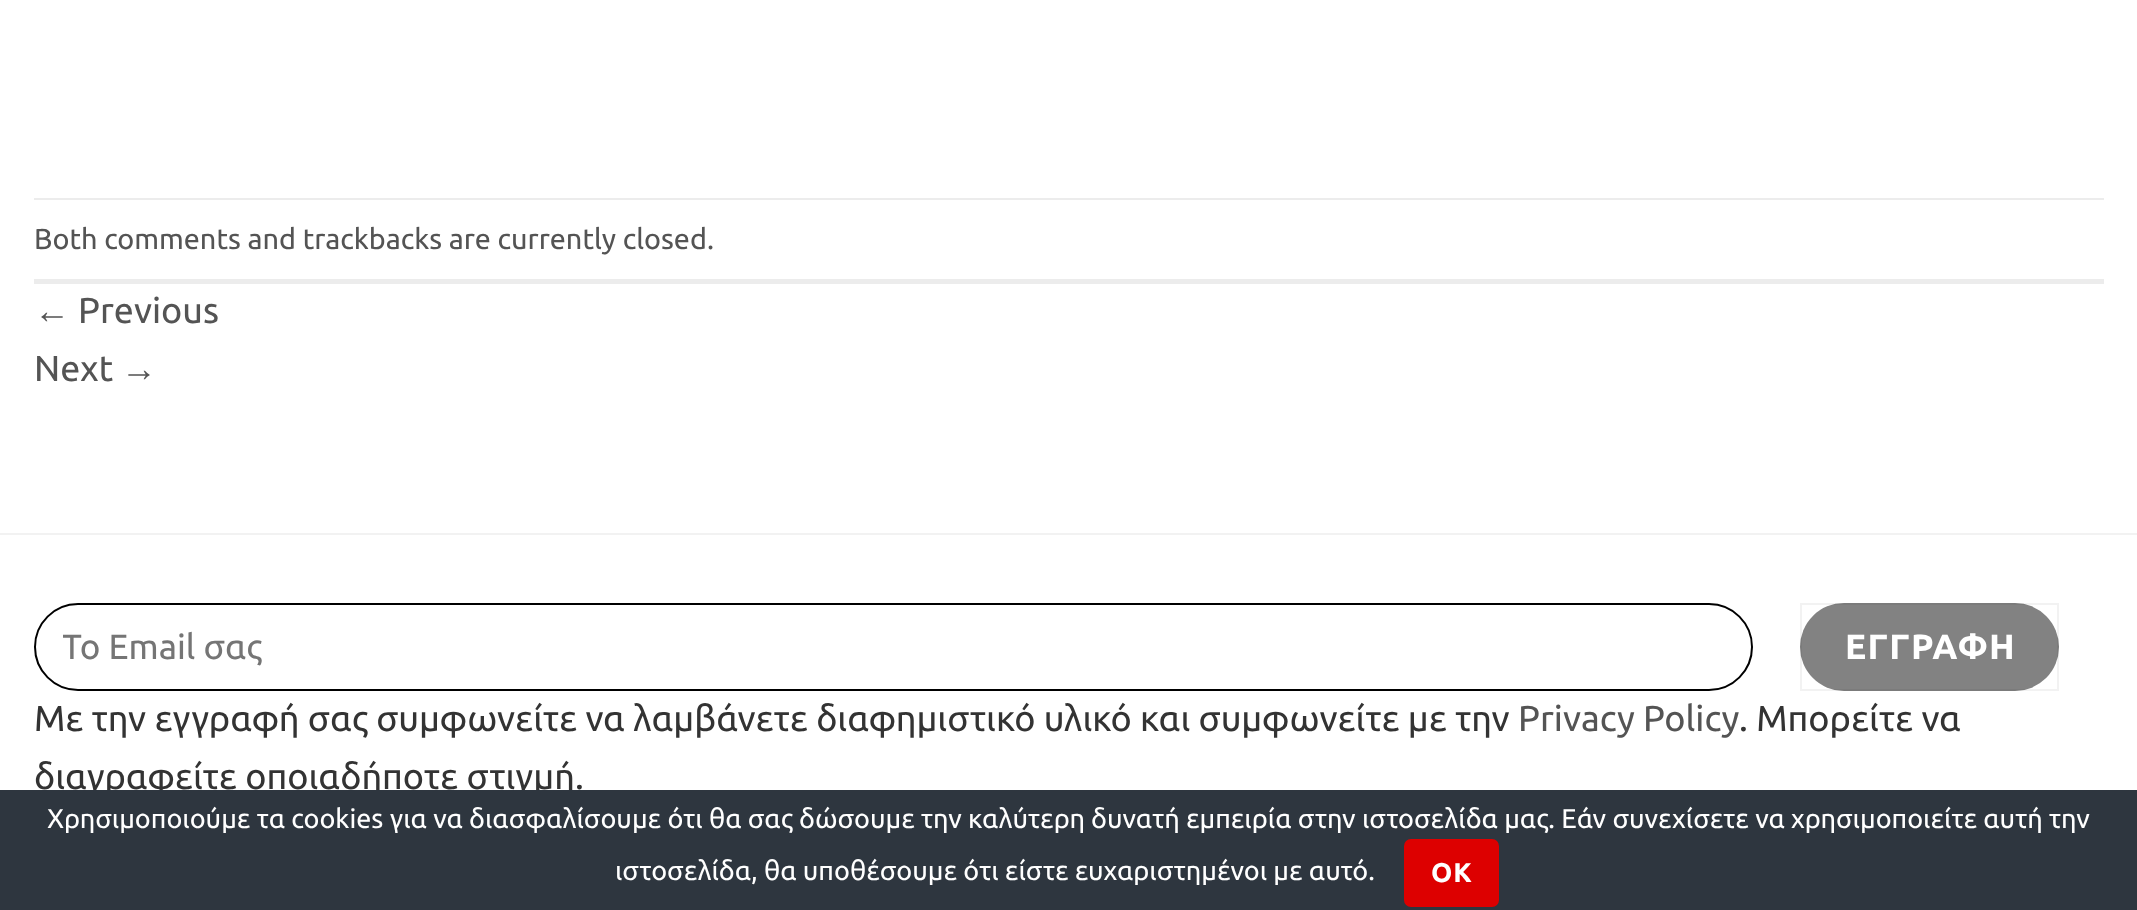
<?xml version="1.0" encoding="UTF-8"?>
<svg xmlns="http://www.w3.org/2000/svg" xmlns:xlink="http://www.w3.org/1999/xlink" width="2137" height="910">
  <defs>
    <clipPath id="clip1"><rect x="63" y="628" width="1663" height="38" /></clipPath>
  </defs>
  <rect width="100%" height="100%" fill="#ffffff" />
  <rect x="34" y="198" width="2070" height="2" fill="#ececec" />
  <rect x="34" y="279" width="2070" height="5" fill="#ececec" />
  <rect y="533" width="2137" height="2" fill="#f2f2f2" />
  <rect x="35" y="604" width="1717" height="86" rx="43" fill="none" stroke="#000000" stroke-width="2" />
  <rect x="1800" y="603" width="259" height="88" rx="44" fill="#828282" />
  <rect x="1801" y="604" width="257" height="86" fill="none" stroke="#000000" stroke-opacity="0.05" stroke-width="2" />
  <text x="34" y="249" style="font-family: Ubuntu; font-size: 28.8px; fill: #545454">Both comments and trackbacks are currently closed.</text>
  <text x="34" y="323" style="font-family: Liberation Sans; font-size: 36px; fill: #545454">←</text>
  <text x="78" y="323" style="font-family: Ubuntu; font-size: 36px; fill: #545454">Previous</text>
  <text x="34" y="381" style="font-family: Ubuntu; font-size: 36px; fill: #545454">Next</text>
  <text x="121" y="381" style="font-family: Liberation Sans; font-size: 36px; fill: #545454">→</text>
  <g clip-path="url(#clip1)">
    <text x="62" y="659" style="font-family: Ubuntu; font-size: 35px; fill: #757575">Το Email σας</text>
  </g>
  <text x="1845" y="659" style="font-family: Ubuntu; font-size: 35px; font-weight: bold; letter-spacing: 1px; fill: #ffffff">ΕΓΓΡΑΦΗ</text>
  <text x="34" y="731" style="font-family: Ubuntu; font-size: 36px; fill: #333333">Με την εγγραφή σας συμφωνείτε να λαμβάνετε διαφημιστικό υλικό και συμφωνείτε με την</text>
  <text x="1518" y="731" style="font-family: Ubuntu; font-size: 36px; fill: #545454">Privacy Policy</text>
  <text x="1739" y="731" style="font-family: Ubuntu; font-size: 36px; fill: #333333">. Μπορείτε να</text>
  <text x="34" y="789" style="font-family: Ubuntu; font-size: 36px; fill: #333333">διαγραφείτε οποιαδήποτε στιγμή.</text>
  <rect y="790" width="2137" height="120" fill="#2e363f" />
  <text x="47" y="828" style="font-family: Ubuntu; font-size: 27px; fill: #ffffff">Χρησιμοποιούμε τα cookies για να διασφαλίσουμε ότι θα σας δώσουμε την καλύτερη δυνατή εμπειρία στην ιστοσελίδα μας. Εάν συνεχίσετε να χρησιμοποιείτε αυτή την</text>
  <text x="615" y="880" style="font-family: Ubuntu; font-size: 27px; fill: #ffffff">ιστοσελίδα, θα υποθέσουμε ότι είστε ευχαριστημένοι με αυτό.</text>
  <rect x="1404" y="839" width="95" height="68" rx="7" fill="#dd0000" />
  <text x="1431" y="882" style="font-family: Ubuntu; font-size: 27px; font-weight: bold; letter-spacing: 1px; fill: #ffffff">OK</text>
</svg>
